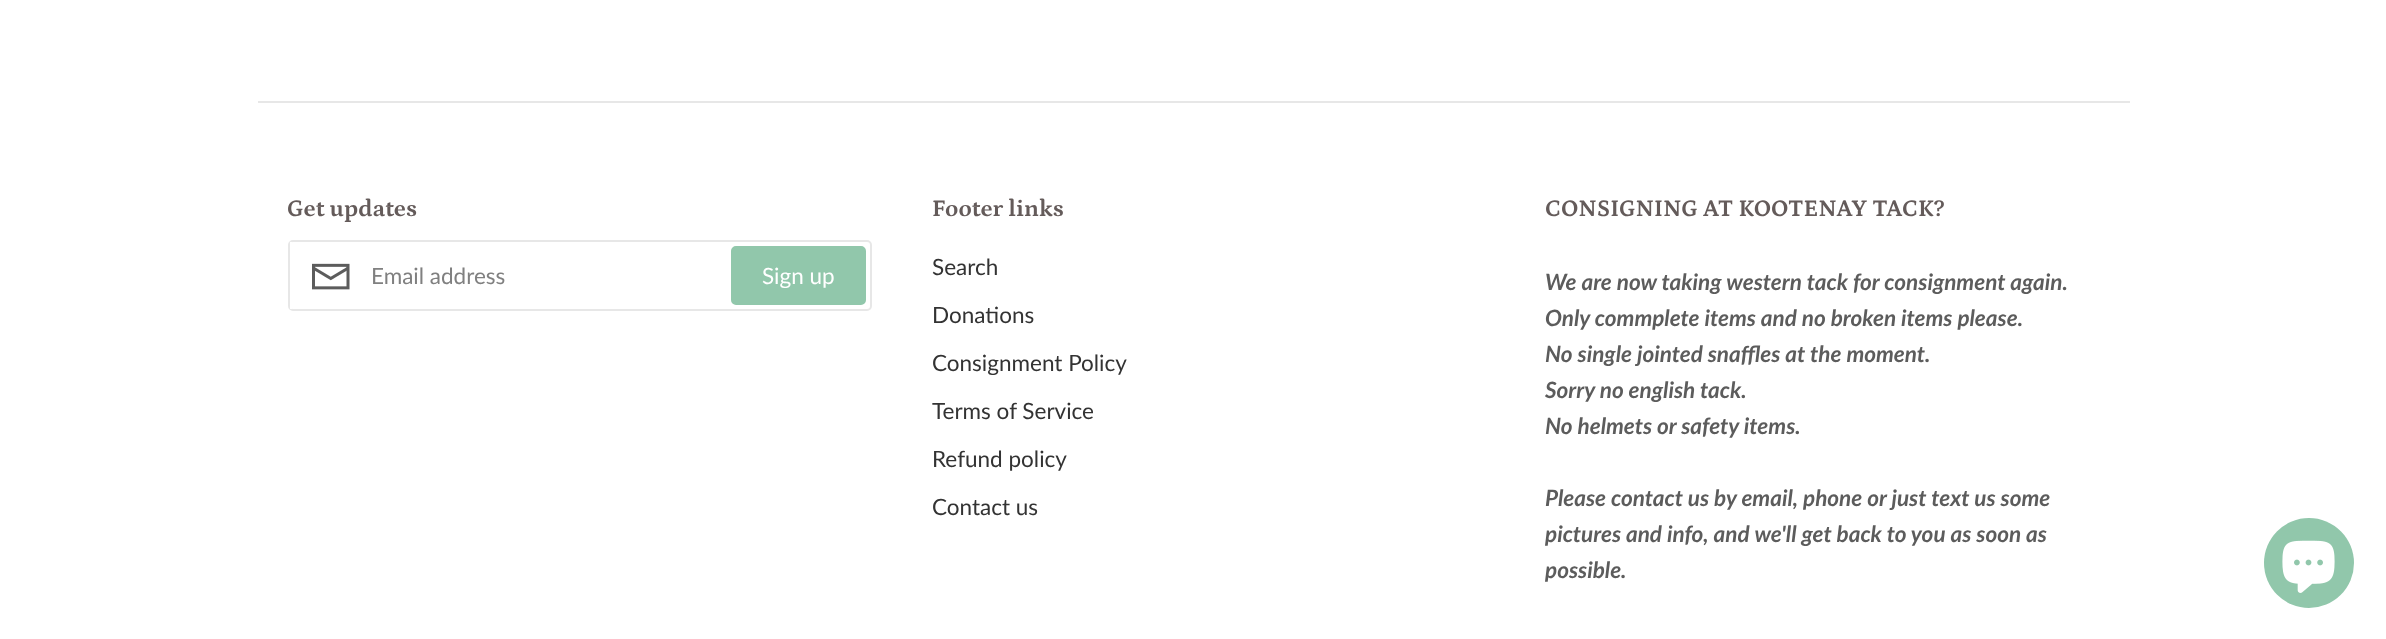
<?xml version="1.0" encoding="UTF-8"?>
<svg xmlns="http://www.w3.org/2000/svg" xmlns:xlink="http://www.w3.org/1999/xlink" width="2386" height="639">
  <rect width="100%" height="100%" fill="#ffffff" />
  <rect x="258" y="101" width="1872" height="2" fill="#e7e7e7" />
  <rect x="289" y="241" width="582" height="69" rx="4" fill="none" stroke="#e7e7e7" stroke-width="2" />
  <image x="312" y="263" width="38" height="27" xlink:href="image1.png" />
  <rect x="290" y="242" width="2" height="67" fill="#ffffff" />
  <rect x="732" y="247" width="133" height="57" rx="4" fill="#91c7ab" stroke="#91c7ab" stroke-width="2" />
  <circle cx="2309" cy="563" r="45" fill="#91c7ab" />
  <image x="2282" y="540" width="53" height="53" xlink:href="image2.png" />
  <text x="287" y="216" style="font-family: Petrona; font-size: 24px; font-weight: bold; fill: #645b5a">Get updates</text>
  <text x="371" y="284" style="font-family: Lato; font-size: 22.5px; fill: #808080">Email address</text>
  <text x="762" y="284" style="font-family: Lato; font-size: 22.5px; fill: #ffffff">Sign up</text>
  <text x="932" y="216" style="font-family: Petrona; font-size: 24px; font-weight: bold; fill: #645b5a">Footer links</text>
  <text x="932" y="275" style="font-family: Lato; font-size: 22.5px; fill: #333333">Search</text>
  <text x="932" y="323" style="font-family: Lato; font-size: 22.5px; fill: #333333">Donations</text>
  <text x="932" y="371" style="font-family: Lato; font-size: 22.5px; fill: #333333">Consignment Policy</text>
  <text x="932" y="419" style="font-family: Lato; font-size: 22.5px; fill: #333333">Terms of Service</text>
  <text x="932" y="467" style="font-family: Lato; font-size: 22.5px; fill: #333333">Refund policy</text>
  <text x="932" y="515" style="font-family: Lato; font-size: 22.5px; fill: #333333">Contact us</text>
  <text x="1545" y="216" style="font-family: Petrona; font-size: 24px; font-weight: bold; fill: #645b5a">CONSIGNING AT KOOTENAY TACK?</text>
  <text x="1545" y="290" style="font-family: Lato; font-size: 22.5px; font-weight: bold; font-style: italic; fill: #5c5c5c">We are now taking western tack for consignment again.</text>
  <text x="1545" y="326" style="font-family: Lato; font-size: 22.5px; font-weight: bold; font-style: italic; fill: #5c5c5c">Only commplete items and no broken items please.</text>
  <text x="1545" y="362" style="font-family: Lato; font-size: 22.5px; font-weight: bold; font-style: italic; fill: #5c5c5c">No single jointed snaffles at the moment.</text>
  <text x="1545" y="398" style="font-family: Lato; font-size: 22.5px; font-weight: bold; font-style: italic; fill: #5c5c5c">Sorry no english tack.</text>
  <text x="1545" y="434" style="font-family: Lato; font-size: 22.5px; font-weight: bold; font-style: italic; fill: #5c5c5c">No helmets or safety items.</text>
  <text x="1545" y="506" style="font-family: Lato; font-size: 22.5px; font-weight: bold; font-style: italic; fill: #5c5c5c">Please contact us by email, phone or just text us some</text>
  <text x="1545" y="542" style="font-family: Lato; font-size: 22.5px; font-weight: bold; font-style: italic; fill: #5c5c5c">pictures and info, and we'll get back to you as soon as</text>
  <text x="1545" y="578" style="font-family: Lato; font-size: 22.5px; font-weight: bold; font-style: italic; fill: #5c5c5c">possible.</text>
</svg>
